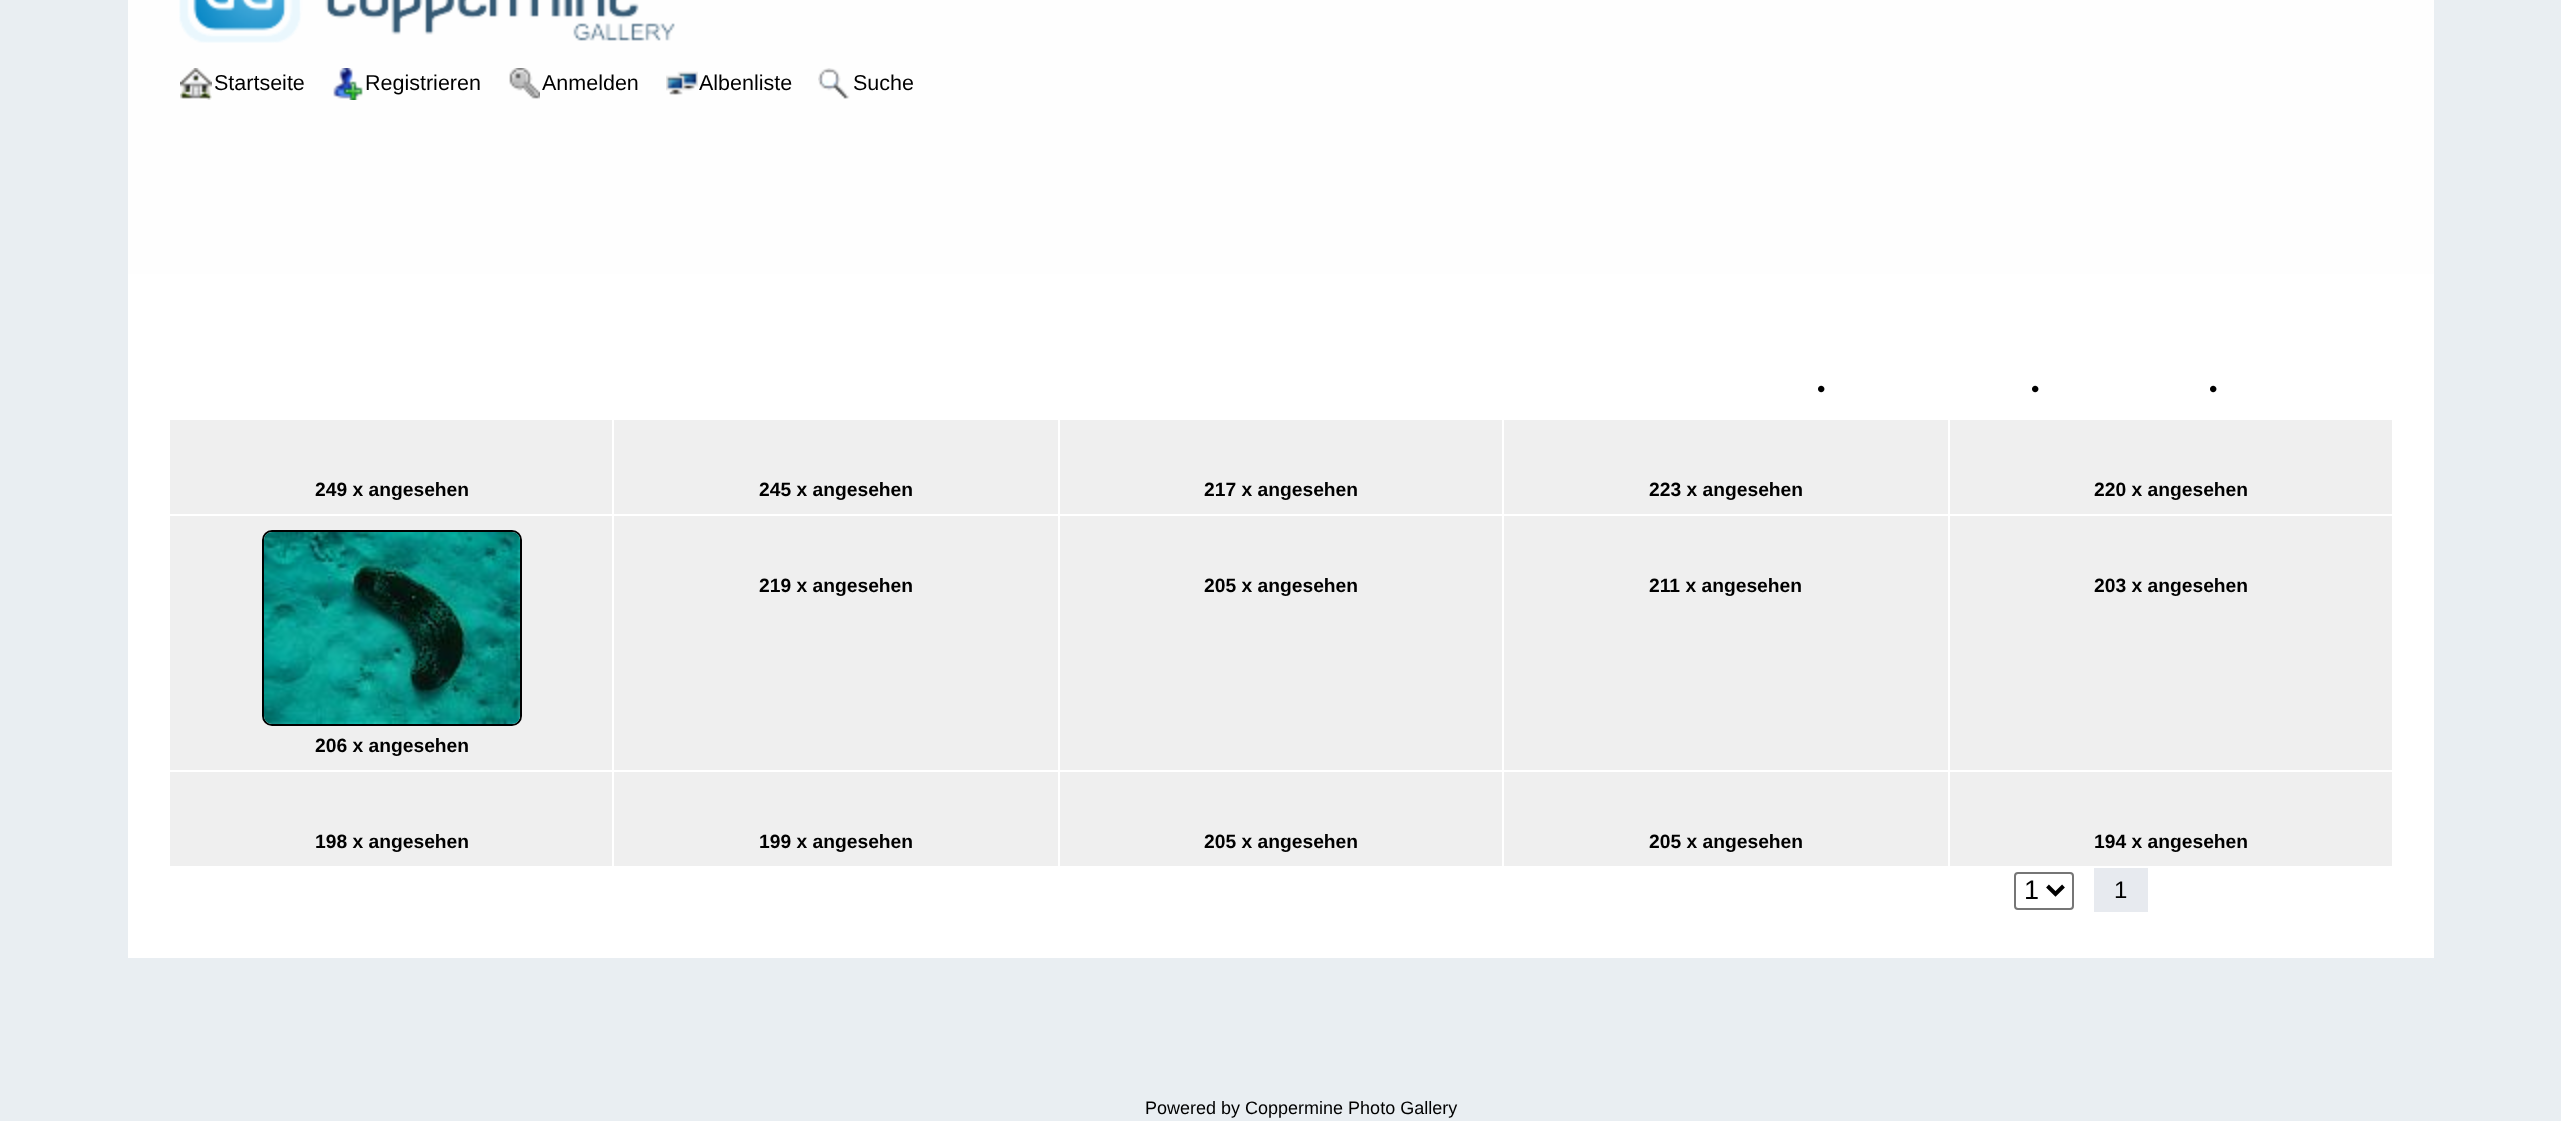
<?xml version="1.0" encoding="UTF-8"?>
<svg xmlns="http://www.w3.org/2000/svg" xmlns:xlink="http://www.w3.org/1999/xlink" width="2561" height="1121">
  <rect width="100%" height="100%" fill="#e9eef2" />
  <rect x="128" width="2306" height="274" fill="#fefefe" />
  <image x="179" y="0" width="496" height="43" xlink:href="image1.png" />
  <image x="180" y="68" width="32" height="32" xlink:href="image2.png" />
  <image x="333" y="68" width="30" height="32" xlink:href="image3.png" />
  <image x="509" y="68" width="31" height="31" xlink:href="image4.png" />
  <image x="666" y="71" width="32" height="24" xlink:href="image5.png" />
  <image x="818" y="68" width="32" height="31" xlink:href="image6.png" />
  <rect x="128" y="274" width="2306" height="684" fill="#ffffff" />
  <rect x="170" y="420" width="442" height="94" fill="#efefef" />
  <rect x="614" y="420" width="444" height="94" fill="#efefef" />
  <rect x="1060" y="420" width="442" height="94" fill="#efefef" />
  <rect x="1504" y="420" width="444" height="94" fill="#efefef" />
  <rect x="1950" y="420" width="442" height="94" fill="#efefef" />
  <rect x="614" y="516" width="444" height="254" fill="#efefef" />
  <rect x="1060" y="516" width="442" height="254" fill="#efefef" />
  <rect x="1504" y="516" width="444" height="254" fill="#efefef" />
  <rect x="1950" y="516" width="442" height="254" fill="#efefef" />
  <rect x="170" y="516" width="442" height="254" fill="#efefef" />
  <rect x="263" y="531" width="258" height="194" rx="9" fill="none" stroke="#000000" stroke-width="2" />
  <image x="264" y="532" width="256" height="192" xlink:href="image7.png" />
  <rect x="170" y="772" width="442" height="94" fill="#efefef" />
  <rect x="614" y="772" width="444" height="94" fill="#efefef" />
  <rect x="1060" y="772" width="442" height="94" fill="#efefef" />
  <rect x="1504" y="772" width="444" height="94" fill="#efefef" />
  <rect x="1950" y="772" width="442" height="94" fill="#efefef" />
  <rect x="2015" y="873" width="58" height="36" rx="3" fill="none" stroke="#767676" stroke-width="2" />
  <path d="M 2047.5 886 l 8 8 l 8 -8" fill="none" stroke="#000000" stroke-width="4" />
  <rect x="2094" y="868" width="54" height="44" fill="#e7eaef" />
  <text x="214" y="90" style="font-family: Liberation Sans; font-size: 21.5px; fill: #000000">Startseite</text>
  <text x="365" y="90" style="font-family: Liberation Sans; font-size: 21.5px; fill: #000000">Registrieren</text>
  <text x="542" y="90" style="font-family: Liberation Sans; font-size: 21.5px; fill: #000000">Anmelden</text>
  <text x="699" y="90" style="font-family: Liberation Sans; font-size: 21.5px; fill: #000000">Albenliste</text>
  <text x="853" y="90" style="font-family: Liberation Sans; font-size: 21.5px; fill: #000000">Suche</text>
  <text x="1817" y="397" style="font-family: Liberation Sans; font-size: 24px; fill: #000000">•</text>
  <text x="2031" y="397" style="font-family: Liberation Sans; font-size: 24px; fill: #000000">•</text>
  <text x="2209" y="397" style="font-family: Liberation Sans; font-size: 24px; fill: #000000">•</text>
  <text x="315" y="496" style="font-family: Liberation Sans; font-size: 19.25px; font-weight: bold; fill: #000000">249 x angesehen</text>
  <text x="759" y="496" style="font-family: Liberation Sans; font-size: 19.25px; font-weight: bold; fill: #000000">245 x angesehen</text>
  <text x="1204" y="496" style="font-family: Liberation Sans; font-size: 19.25px; font-weight: bold; fill: #000000">217 x angesehen</text>
  <text x="1649" y="496" style="font-family: Liberation Sans; font-size: 19.25px; font-weight: bold; fill: #000000">223 x angesehen</text>
  <text x="2094" y="496" style="font-family: Liberation Sans; font-size: 19.25px; font-weight: bold; fill: #000000">220 x angesehen</text>
  <text x="759" y="592" style="font-family: Liberation Sans; font-size: 19.25px; font-weight: bold; fill: #000000">219 x angesehen</text>
  <text x="1204" y="592" style="font-family: Liberation Sans; font-size: 19.25px; font-weight: bold; fill: #000000">205 x angesehen</text>
  <text x="1649" y="592" style="font-family: Liberation Sans; font-size: 19.25px; font-weight: bold; fill: #000000">211 x angesehen</text>
  <text x="2094" y="592" style="font-family: Liberation Sans; font-size: 19.25px; font-weight: bold; fill: #000000">203 x angesehen</text>
  <text x="315" y="752" style="font-family: Liberation Sans; font-size: 19.25px; font-weight: bold; fill: #000000">206 x angesehen</text>
  <text x="315" y="848" style="font-family: Liberation Sans; font-size: 19.25px; font-weight: bold; fill: #000000">198 x angesehen</text>
  <text x="759" y="848" style="font-family: Liberation Sans; font-size: 19.25px; font-weight: bold; fill: #000000">199 x angesehen</text>
  <text x="1204" y="848" style="font-family: Liberation Sans; font-size: 19.25px; font-weight: bold; fill: #000000">205 x angesehen</text>
  <text x="1649" y="848" style="font-family: Liberation Sans; font-size: 19.25px; font-weight: bold; fill: #000000">205 x angesehen</text>
  <text x="2094" y="848" style="font-family: Liberation Sans; font-size: 19.25px; font-weight: bold; fill: #000000">194 x angesehen</text>
  <text x="2024" y="899" style="font-family: Liberation Sans; font-size: 27px; fill: #000000">1</text>
  <text x="2114" y="898" style="font-family: Liberation Sans; font-size: 24px; fill: #000000">1</text>
  <text x="1145" y="1114" style="font-family: Liberation Sans; font-size: 18px; fill: #000000">Powered by Coppermine Photo Gallery</text>
</svg>
